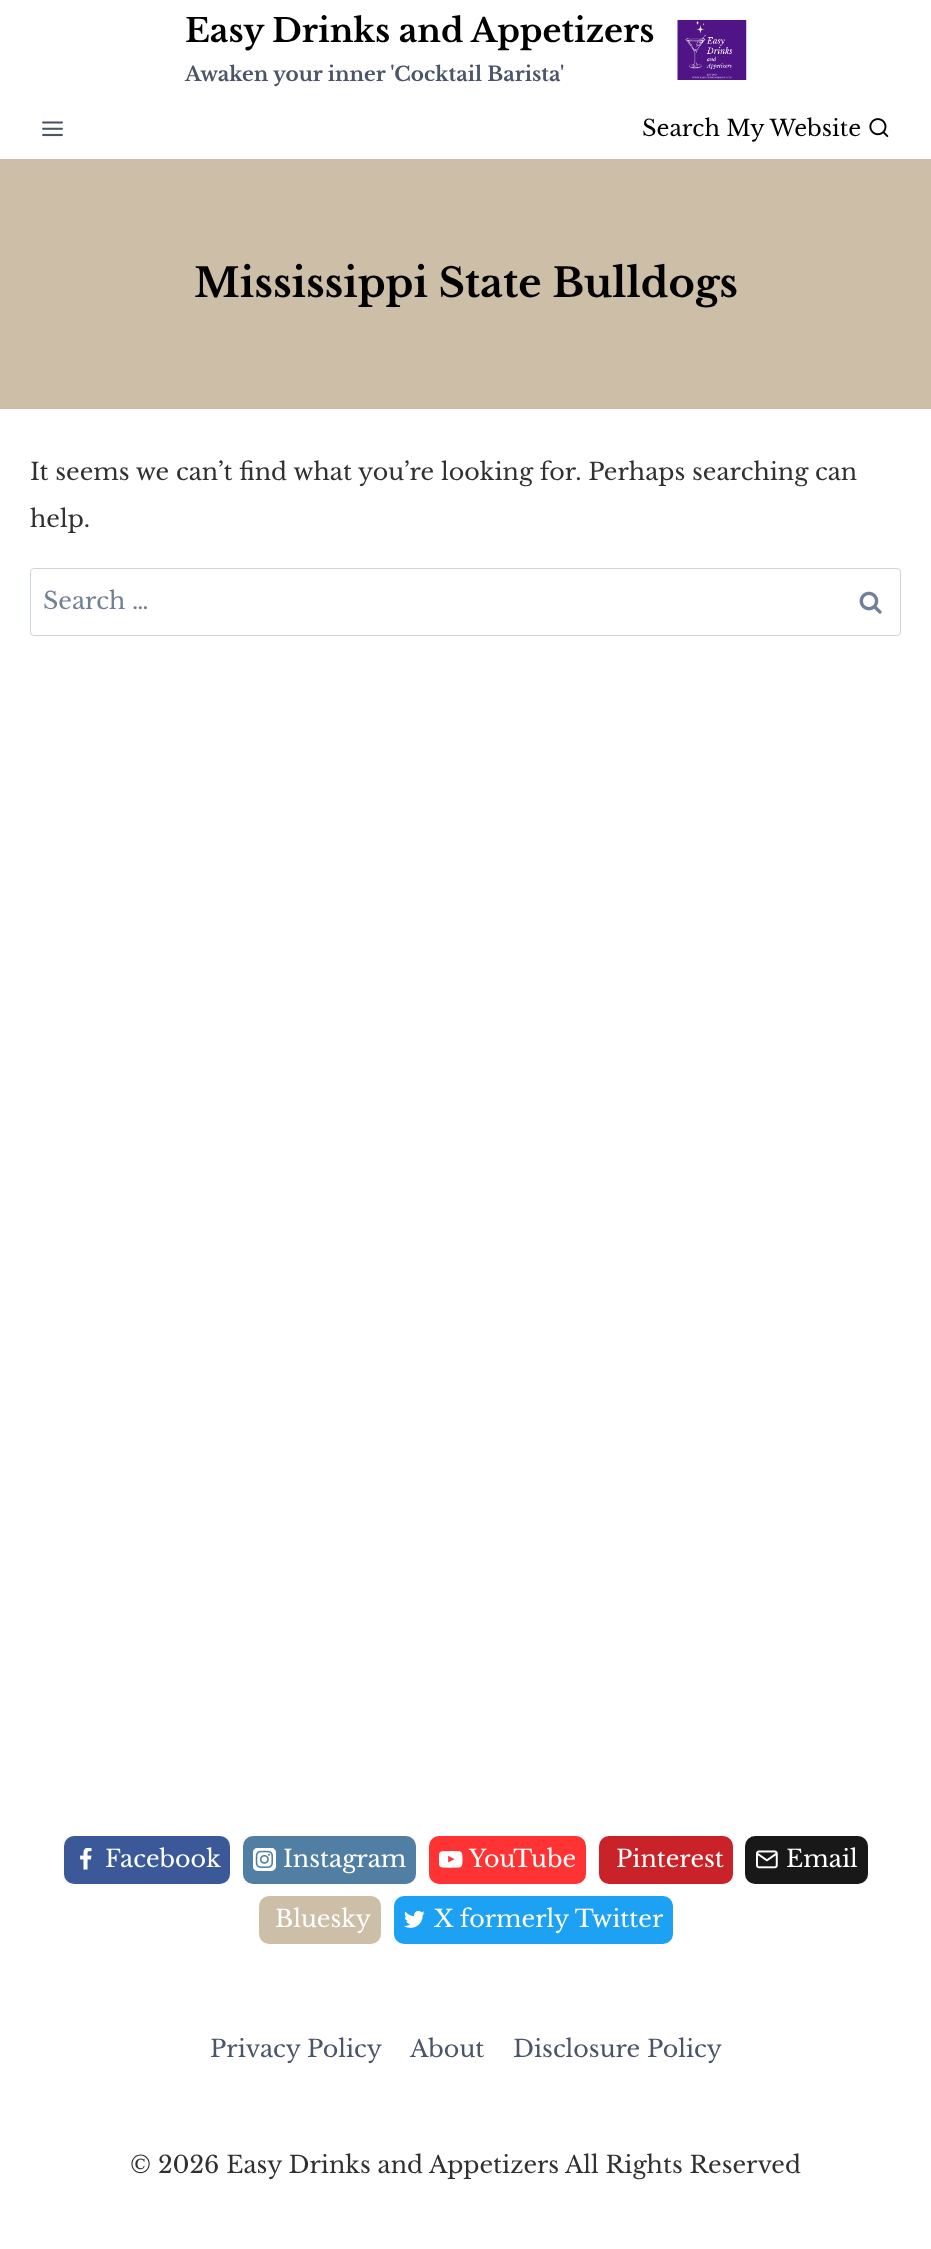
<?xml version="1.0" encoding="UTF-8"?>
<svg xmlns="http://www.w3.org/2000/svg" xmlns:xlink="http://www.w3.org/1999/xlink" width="931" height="2249">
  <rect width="100%" height="100%" fill="#ffffff" />
  <image x="677" y="20" width="70" height="60" xlink:href="image1.png" />
  <image x="42" y="121" width="21" height="16" xlink:href="image2.png" />
  <image x="869" y="118" width="20" height="19" xlink:href="image3.png" />
  <rect y="159" width="931" height="250" fill="#cdbea7" />
  <rect x="30.5" y="568.5" width="870" height="67" rx="3.5" fill="none" stroke="#cbd5e0" />
  <image x="859" y="591" width="23" height="23" xlink:href="image4.png" />
  <rect x="64" y="1836" width="166" height="48" rx="10" fill="#3b5998" />
  <image x="80" y="1848" width="12" height="22" xlink:href="image5.png" />
  <rect x="243" y="1836" width="173" height="48" rx="10" fill="#517fa4" />
  <image x="253" y="1848" width="23" height="23" xlink:href="image6.png" />
  <rect x="429" y="1836" width="157" height="48" rx="10" fill="#ff3333" />
  <image x="439" y="1851" width="24" height="17" xlink:href="image7.png" />
  <rect x="599" y="1836" width="134" height="48" rx="10" fill="#c92228" />
  <rect x="745" y="1836" width="123" height="48" rx="10" fill="#181818" />
  <image x="756" y="1850" width="22" height="19" xlink:href="image8.png" />
  <rect x="259" y="1896" width="122" height="48" rx="10" fill="#cdbea7" />
  <rect x="394" y="1896" width="279" height="48" rx="10" fill="#1da1f2" />
  <image x="404" y="1910" width="21" height="18" xlink:href="image9.png" />
  <text x="185" y="42" style="font-family: Libre Baskerville; font-size: 32.5px; font-weight: bold; fill: #000000">Easy Drinks and Appetizers</text>
  <text x="185" y="81" style="font-family: Libre Baskerville; font-size: 20px; font-weight: bold; fill: #4a5568">Awaken your inner 'Cocktail Barista'</text>
  <text x="642" y="136" style="font-family: Libre Baskerville; font-size: 22.5px; fill: #000000">Search My Website</text>
  <text x="194" y="297" style="font-family: Libre Baskerville; font-size: 40px; font-weight: bold; fill: #000000">Mississippi State Bulldogs</text>
  <text x="30" y="480" style="font-family: Libre Baskerville; font-size: 23.75px; fill: #323030">It seems we can’t find what you’re looking for. Perhaps searching can</text>
  <text x="30" y="527" style="font-family: Libre Baskerville; font-size: 23.75px; fill: #323030">help.</text>
  <text x="43" y="609" style="font-family: Libre Baskerville; font-size: 23.75px; fill: #718096">Search …</text>
  <text x="105" y="1867" style="font-family: Libre Baskerville; font-size: 23.75px; fill: #ffffff">Facebook</text>
  <text x="283" y="1867" style="font-family: Libre Baskerville; font-size: 23.75px; fill: #ffffff">Instagram</text>
  <text x="469" y="1867" style="font-family: Libre Baskerville; font-size: 23.75px; fill: #ffffff">YouTube</text>
  <text x="616" y="1867" style="font-family: Libre Baskerville; font-size: 23.75px; fill: #ffffff">Pinterest</text>
  <text x="786" y="1867" style="font-family: Libre Baskerville; font-size: 23.75px; fill: #ffffff">Email</text>
  <text x="275" y="1927" style="font-family: Libre Baskerville; font-size: 23.75px; fill: #ffffff">Bluesky</text>
  <text x="434" y="1927" style="font-family: Libre Baskerville; font-size: 23.75px; fill: #ffffff">X formerly Twitter</text>
  <text x="210" y="2057" style="font-family: Libre Baskerville; font-size: 23.75px; fill: #4a5568">Privacy Policy</text>
  <text x="410" y="2057" style="font-family: Libre Baskerville; font-size: 23.75px; fill: #4a5568">About</text>
  <text x="513" y="2057" style="font-family: Libre Baskerville; font-size: 23.75px; fill: #4a5568">Disclosure Policy</text>
  <text x="130" y="2173" style="font-family: Libre Baskerville; font-size: 23.75px; fill: #323030">© 2026 Easy Drinks and Appetizers All Rights Reserved</text>
</svg>
